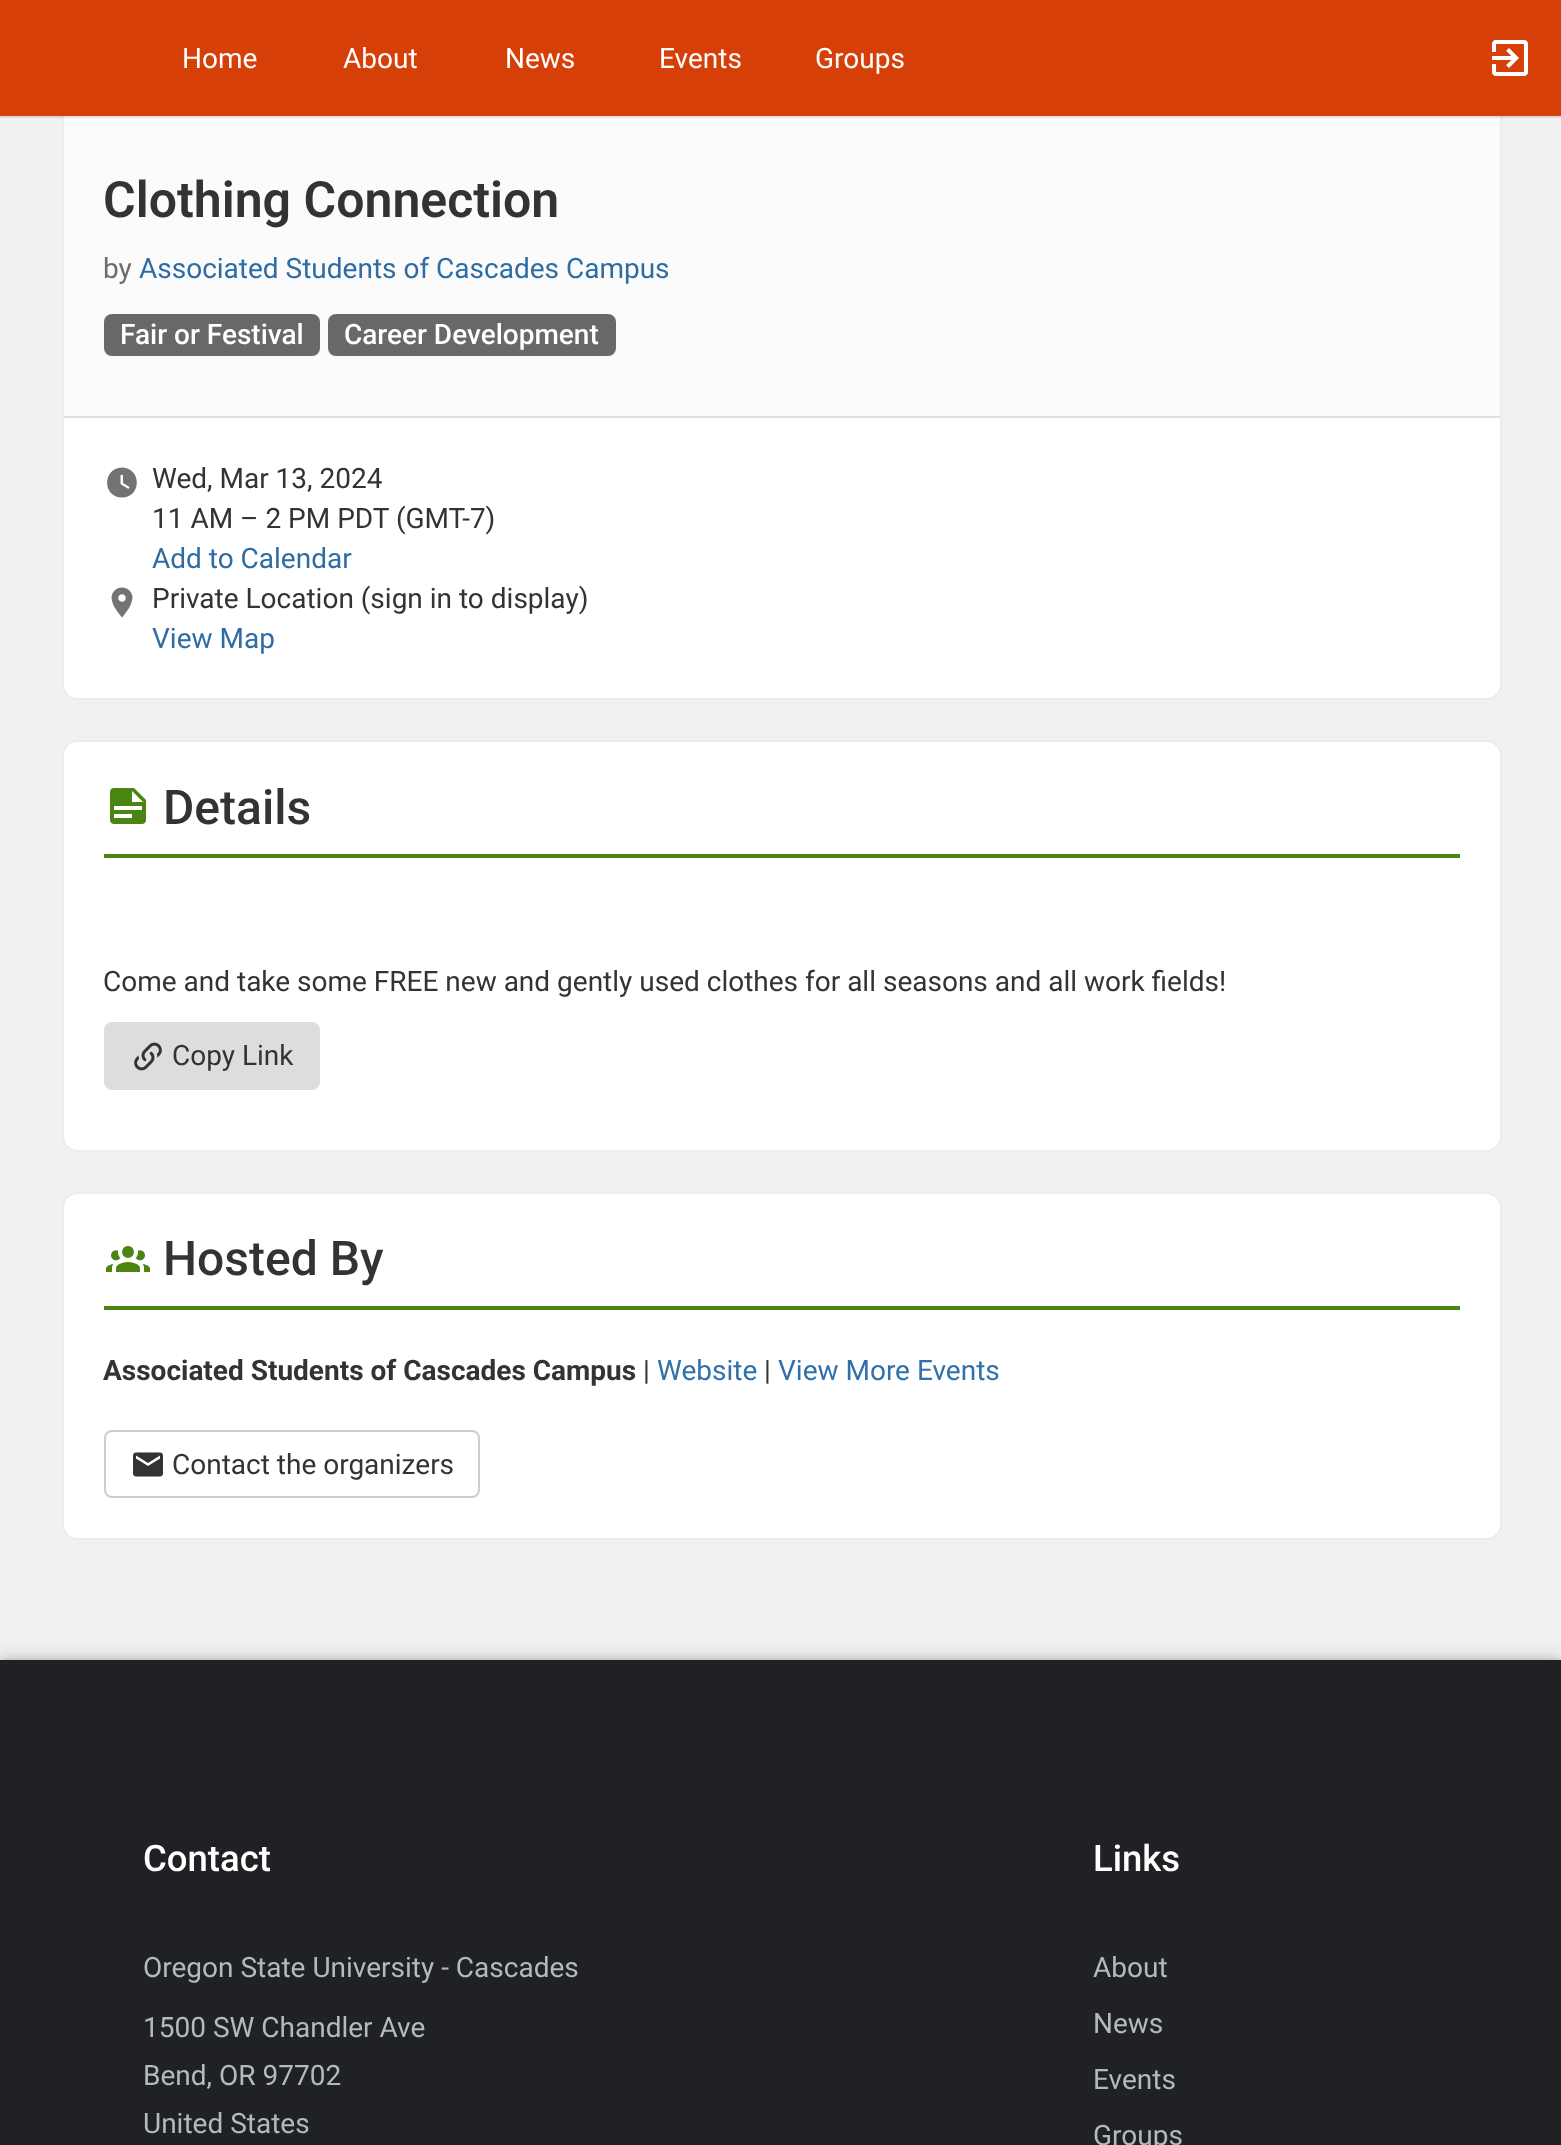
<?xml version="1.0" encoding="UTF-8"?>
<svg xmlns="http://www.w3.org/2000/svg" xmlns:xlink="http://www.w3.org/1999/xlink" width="1561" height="2145">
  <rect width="100%" height="100%" fill="#f1f1f1" />
  <rect x="63" y="29" width="1438" height="670" rx="15" fill="#ffffff" stroke="#ececec" stroke-width="2" />
  <rect width="1561" height="116" fill="#d73f09" />
  <rect x="64" y="116" width="1436" height="300" fill="#fbfbfb" />
  <rect x="140" y="116" width="1421" height="2" fill="#000000" fill-opacity="0.1" />
  <image x="1492" y="40" width="36" height="36" xlink:href="image1.png" />
  <rect y="116" width="140" height="2" fill="#000000" fill-opacity="0.1" />
  <rect x="104" y="314" width="216" height="42" rx="8" fill="#686868" />
  <rect x="328" y="314" width="288" height="42" rx="8" fill="#686868" />
  <rect x="64" y="416" width="1436" height="2" fill="#e0e0e0" />
  <path d="M 122 467.5 c -20 0.5 -19.5 30 0 30 c 19.5 0 20 -29.5 0 -30 z m 6.5 21.5 l -8 -5 v -9 h 2.5 v 8 l 6.5 4 z" fill="#737373" />
  <image x="111" y="587" width="22" height="31" xlink:href="image2.png" />
  <rect x="63" y="741" width="1438" height="410" rx="15" fill="#ffffff" stroke="#ececec" stroke-width="2" />
  <image x="110" y="788" width="36" height="36" xlink:href="image3.png" />
  <rect x="104" y="854" width="1356" height="4" fill="#4a8411" />
  <rect x="105" y="1023" width="214" height="66" rx="7" fill="#dddddd" stroke="#dddddd" stroke-width="2" />
  <image x="134" y="1042" width="28" height="29" xlink:href="image4.png" />
  <rect x="63" y="1193" width="1438" height="346" rx="15" fill="#ffffff" stroke="#ececec" stroke-width="2" />
  <image x="105" y="1246" width="46" height="26" xlink:href="image5.png" />
  <rect x="104" y="1306" width="1356" height="4" fill="#4a8411" />
  <rect x="105" y="1431" width="374" height="66" rx="7" fill="none" stroke="#cccccc" stroke-width="2" />
  <image x="133" y="1452" width="30" height="25" xlink:href="image6.png" />
  <rect x="2" y="1660" width="1558" height="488" fill="#000000" fill-opacity="0.12" filter="blur(1px)" />
  <rect y="1658" width="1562" height="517" fill="#000000" fill-opacity="0.14" filter="blur(10px)" />
  <rect y="1658" width="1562" height="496" fill="#000000" fill-opacity="0.1" filter="blur(3px)" />
  <rect y="1660" width="1561" height="485" fill="#202124" />
  <text x="182" y="68" style="font-family: Roboto; font-size: 28px; fill: #ffffff">Home</text>
  <text x="343" y="68" style="font-family: Roboto; font-size: 28px; fill: #ffffff">About</text>
  <text x="505" y="68" style="font-family: Roboto; font-size: 28px; fill: #ffffff">News</text>
  <text x="659" y="68" style="font-family: Roboto; font-size: 28px; fill: #ffffff">Events</text>
  <text x="815" y="68" style="font-family: Roboto; font-size: 28px; fill: #ffffff">Groups</text>
  <text x="103" y="217" style="font-family: Roboto; font-size: 50px; font-weight: 600; fill: #333333">Clothing Connection</text>
  <text x="103" y="278" style="font-family: Roboto; font-size: 28px; fill: #6c6c6c">by</text>
  <text x="139" y="278" style="font-family: Roboto; font-size: 28px; fill: #2e6ca3">Associated Students of Cascades Campus</text>
  <text x="120" y="344" style="font-family: Roboto; font-size: 28px; font-weight: 500; fill: #ffffff">Fair or Festival</text>
  <text x="344" y="344" style="font-family: Roboto; font-size: 28px; font-weight: 500; fill: #ffffff">Career Development</text>
  <text x="152" y="488" style="font-family: Roboto; font-size: 28px; fill: #333333">Wed, Mar 13, 2024</text>
  <text x="152" y="528" style="font-family: Roboto; font-size: 28px; fill: #333333">11 AM – 2 PM PDT (GMT-7)</text>
  <text x="152" y="568" style="font-family: Roboto; font-size: 28px; fill: #2e6ca3">Add to Calendar</text>
  <text x="152" y="608" style="font-family: Roboto; font-size: 28px; fill: #333333">Private Location (sign in to display)</text>
  <text x="152" y="648" style="font-family: Roboto; font-size: 28px; fill: #2e6ca3">View Map</text>
  <text x="163" y="824" style="font-family: Roboto; font-size: 48px; font-weight: 500; fill: #333333">Details</text>
  <text x="103" y="991" style="font-family: Roboto; font-size: 28px; fill: #333333">Come and take some FREE new and gently used clothes for all seasons and all work fields!</text>
  <text x="172" y="1065" style="font-family: Roboto; font-size: 28px; fill: #333333">Copy Link</text>
  <text x="163" y="1275" style="font-family: Roboto; font-size: 48px; font-weight: 500; fill: #333333">Hosted By</text>
  <text x="103" y="1380" style="font-family: Roboto; font-size: 28px; font-weight: bold; fill: #333333">Associated Students of Cascades Campus</text>
  <text x="643" y="1380" style="font-family: Roboto; font-size: 28px; fill: #333333">|</text>
  <text x="657" y="1380" style="font-family: Roboto; font-size: 28px; fill: #3071ab">Website</text>
  <text x="764" y="1380" style="font-family: Roboto; font-size: 28px; fill: #333333">|</text>
  <text x="778" y="1380" style="font-family: Roboto; font-size: 28px; fill: #3071ab">View More Events</text>
  <text x="172" y="1474" style="font-family: Roboto; font-size: 28px; fill: #333333">Contact the organizers</text>
  <text x="143" y="1871" style="font-family: Roboto; font-size: 36.5px; font-weight: 500; fill: #ffffff">Contact</text>
  <text x="143" y="1977" style="font-family: Roboto; font-size: 28px; fill: #b3b9bd">Oregon State University - Cascades</text>
  <text x="143" y="2037" style="font-family: Roboto; font-size: 28px; fill: #b3b9bd">1500 SW Chandler Ave</text>
  <text x="143" y="2085" style="font-family: Roboto; font-size: 28px; fill: #b3b9bd">Bend, OR 97702</text>
  <text x="143" y="2133" style="font-family: Roboto; font-size: 28px; fill: #b3b9bd">United States</text>
  <text x="1093" y="1871" style="font-family: Roboto; font-size: 36.5px; font-weight: 500; fill: #ffffff">Links</text>
  <text x="1093" y="1977" style="font-family: Roboto; font-size: 28px; fill: #b3b9bd">About</text>
  <text x="1093" y="2033" style="font-family: Roboto; font-size: 28px; fill: #b3b9bd">News</text>
  <text x="1093" y="2089" style="font-family: Roboto; font-size: 28px; fill: #b3b9bd">Events</text>
  <text x="1093" y="2145" style="font-family: Roboto; font-size: 28px; fill: #b3b9bd">Groups</text>
</svg>
